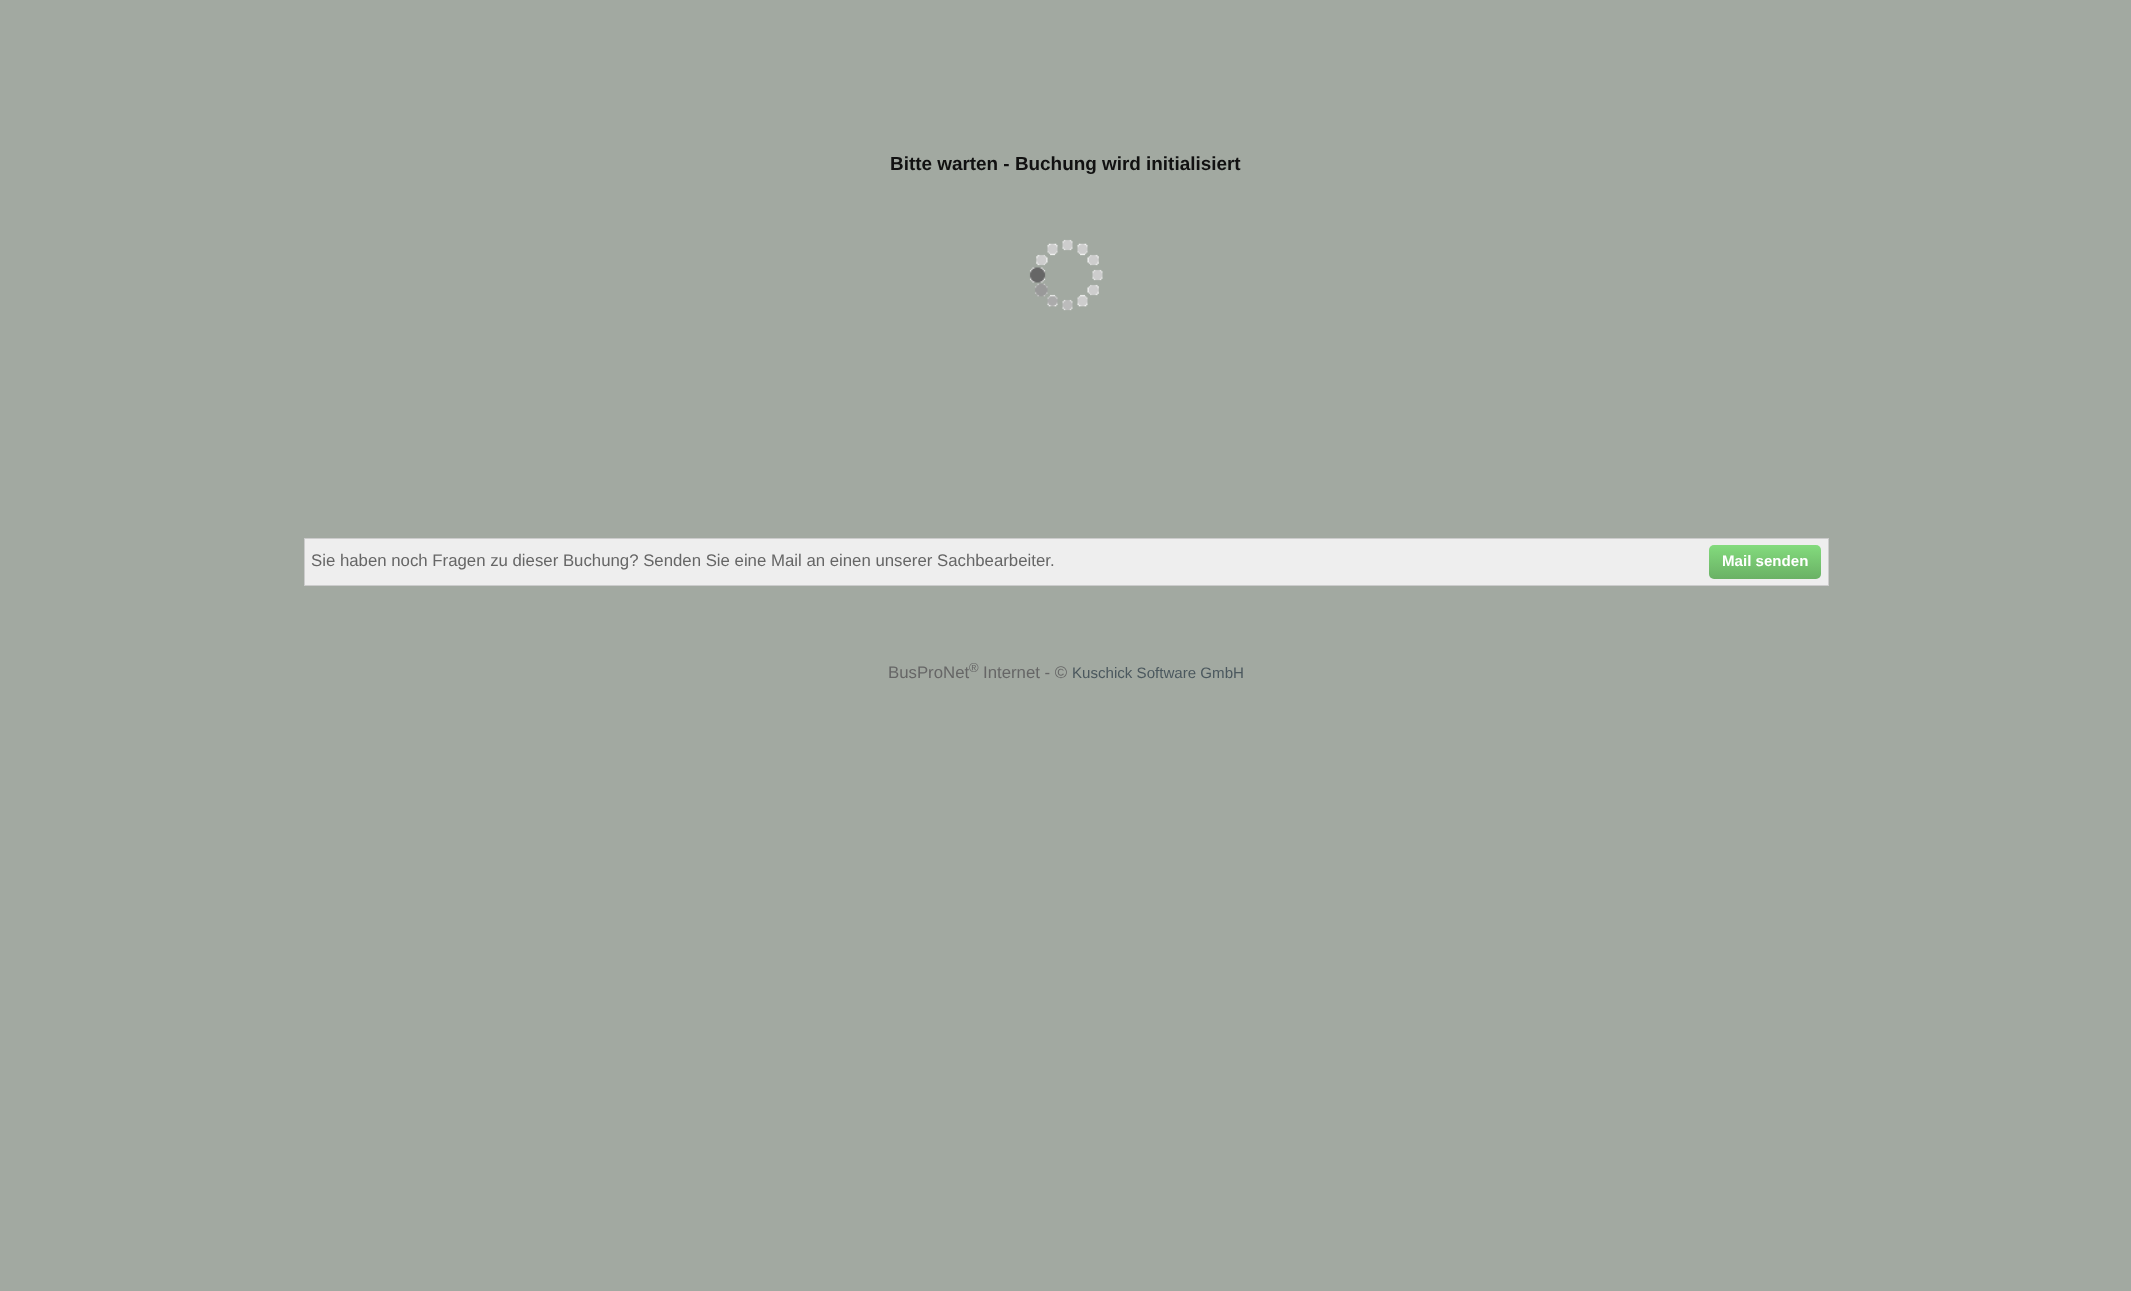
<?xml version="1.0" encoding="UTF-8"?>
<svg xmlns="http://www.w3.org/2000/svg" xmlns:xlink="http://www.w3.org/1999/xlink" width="2131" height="1291">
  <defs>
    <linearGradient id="g1" gradientUnits="userSpaceOnUse" x1="1765" y1="545" x2="1765" y2="579"><stop offset="0" stop-color="#83db7d" /><stop offset="1" stop-color="#6ab165" /></linearGradient>
  </defs>
  <rect width="100%" height="100%" fill="#a2a9a1" />
  <image x="1029" y="239" width="74" height="72" xlink:href="image1.png" />
  <rect x="304.5" y="538.5" width="1524" height="47" fill="#eeeeee" stroke="#cccccc" />
  <rect x="1709" y="545" width="112" height="34" rx="5" fill="url(#g1)" />
  <text x="890" y="170" style="font-family: Liberation Sans; font-size: 18.9px; font-weight: bold; fill: #111111">Bitte warten - Buchung wird initialisiert</text>
  <text x="311" y="566" style="font-family: Liberation Sans; font-size: 16.8px; fill: #666666">Sie haben noch Fragen zu dieser Buchung? Senden Sie eine Mail an einen unserer Sachbearbeiter.</text>
  <text x="1722" y="566" style="font-family: Liberation Sans; font-size: 15.1px; font-weight: bold; fill: #ffffff">Mail senden</text>
  <text x="888" y="678" style="font-family: Liberation Sans; font-size: 16.8px; fill: #666666">BusProNet</text>
  <text x="969" y="672" style="font-family: Liberation Sans; font-size: 13px; fill: #666666">®</text>
  <text x="983" y="678" style="font-family: Liberation Sans; font-size: 16.8px; fill: #666666">Internet - ©</text>
  <text x="1072" y="678" style="font-family: Liberation Sans; font-size: 15.1px; fill: #4b585e">Kuschick Software GmbH</text>
</svg>
